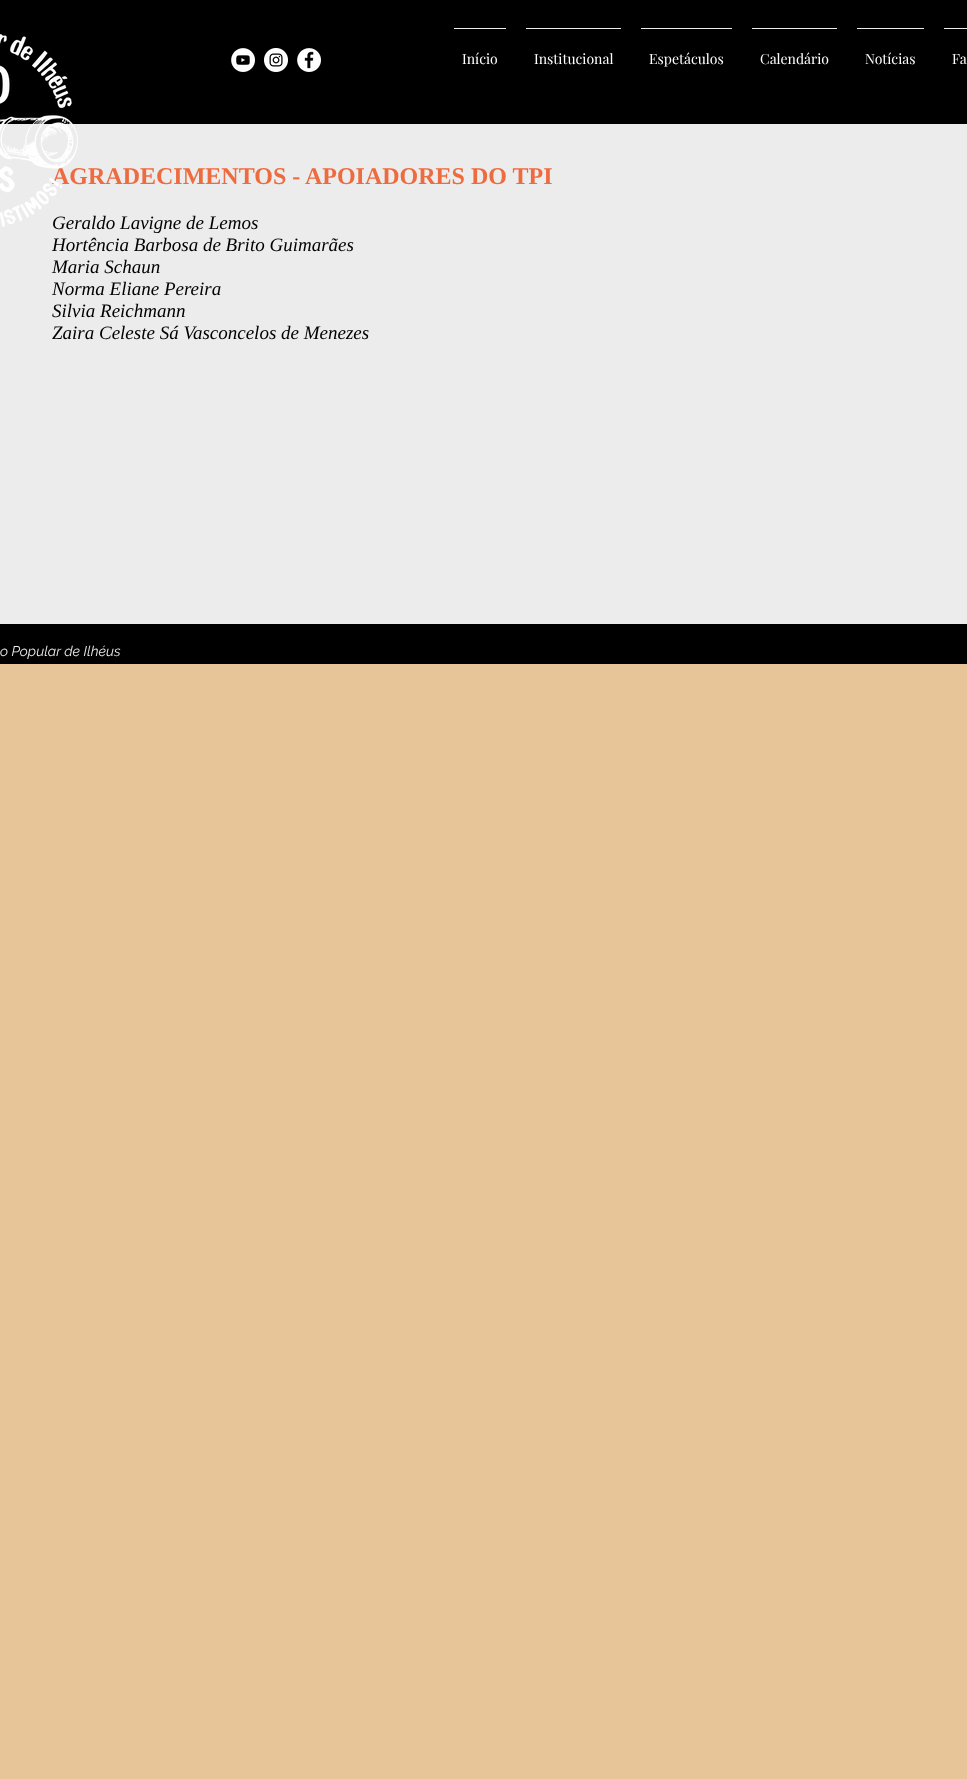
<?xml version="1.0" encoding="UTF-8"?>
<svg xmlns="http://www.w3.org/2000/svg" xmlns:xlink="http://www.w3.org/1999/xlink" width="967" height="1779">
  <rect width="100%" height="100%" fill="#e8c599" />
  <rect width="967" height="124" fill="#000000" />
  <image x="231" y="48" width="24" height="24" xlink:href="image2.png" />
  <image x="264" y="48" width="24" height="24" xlink:href="image3.png" />
  <image x="297" y="48" width="24" height="24" xlink:href="image4.png" />
  <rect x="454" y="28" width="52" height="1" fill="#ececec" />
  <rect x="526" y="28" width="95" height="1" fill="#ececec" />
  <rect x="641" y="28" width="91" height="1" fill="#ececec" />
  <rect x="752" y="28" width="85" height="1" fill="#ececec" />
  <rect x="857" y="28" width="67" height="1" fill="#ececec" />
  <rect x="944" y="28" width="23" height="1" fill="#ececec" />
  <rect y="124" width="967" height="500" fill="#ececec" />
  <rect y="624" width="967" height="40" fill="#000000" />
  <text x="462" y="64" style="font-family: Playfair Display; font-size: 14px; fill: #ffffff">Início</text>
  <text x="534" y="64" style="font-family: Playfair Display; font-size: 14px; fill: #ffffff">Institucional</text>
  <text x="649" y="64" style="font-family: Playfair Display; font-size: 14px; fill: #ffffff">Espetáculos</text>
  <text x="760" y="64" style="font-family: Playfair Display; font-size: 14px; fill: #ffffff">Calendário</text>
  <text x="865" y="64" style="font-family: Playfair Display; font-size: 14px; fill: #ffffff">Notícias</text>
  <text x="952" y="64" style="font-family: Playfair Display; font-size: 14px; fill: #ffffff">Fa</text>
  <text x="52" y="184" style="font-family: Liberation Serif; font-size: 24px; font-weight: bold; fill: #ee6b3f">AGRADECIMENTOS - APOIADORES DO TPI</text>
  <text x="52" y="229" style="font-family: Liberation Serif; font-size: 19px; font-style: italic; fill: #000000">Geraldo Lavigne de Lemos</text>
  <image x="0" y="34" width="78" height="193" xlink:href="image1.png" />
  <text x="52" y="251" style="font-family: Liberation Serif; font-size: 19px; font-style: italic; fill: #000000">Hortência Barbosa de Brito Guimarães</text>
  <text x="52" y="273" style="font-family: Liberation Serif; font-size: 19px; font-style: italic; fill: #000000">Maria Schaun</text>
  <text x="52" y="295" style="font-family: Liberation Serif; font-size: 19px; font-style: italic; fill: #000000">Norma Eliane Pereira</text>
  <text x="52" y="317" style="font-family: Liberation Serif; font-size: 19px; font-style: italic; fill: #000000">Silvia Reichmann</text>
  <text x="52" y="339" style="font-family: Liberation Serif; font-size: 19px; font-style: italic; fill: #000000">Zaira Celeste Sá Vasconcelos de Menezes</text>
  <text x="0" y="656" style="font-family: Raleway; font-size: 14px; font-style: italic; fill: #ececec">o Popular de Ilhéus</text>
</svg>
